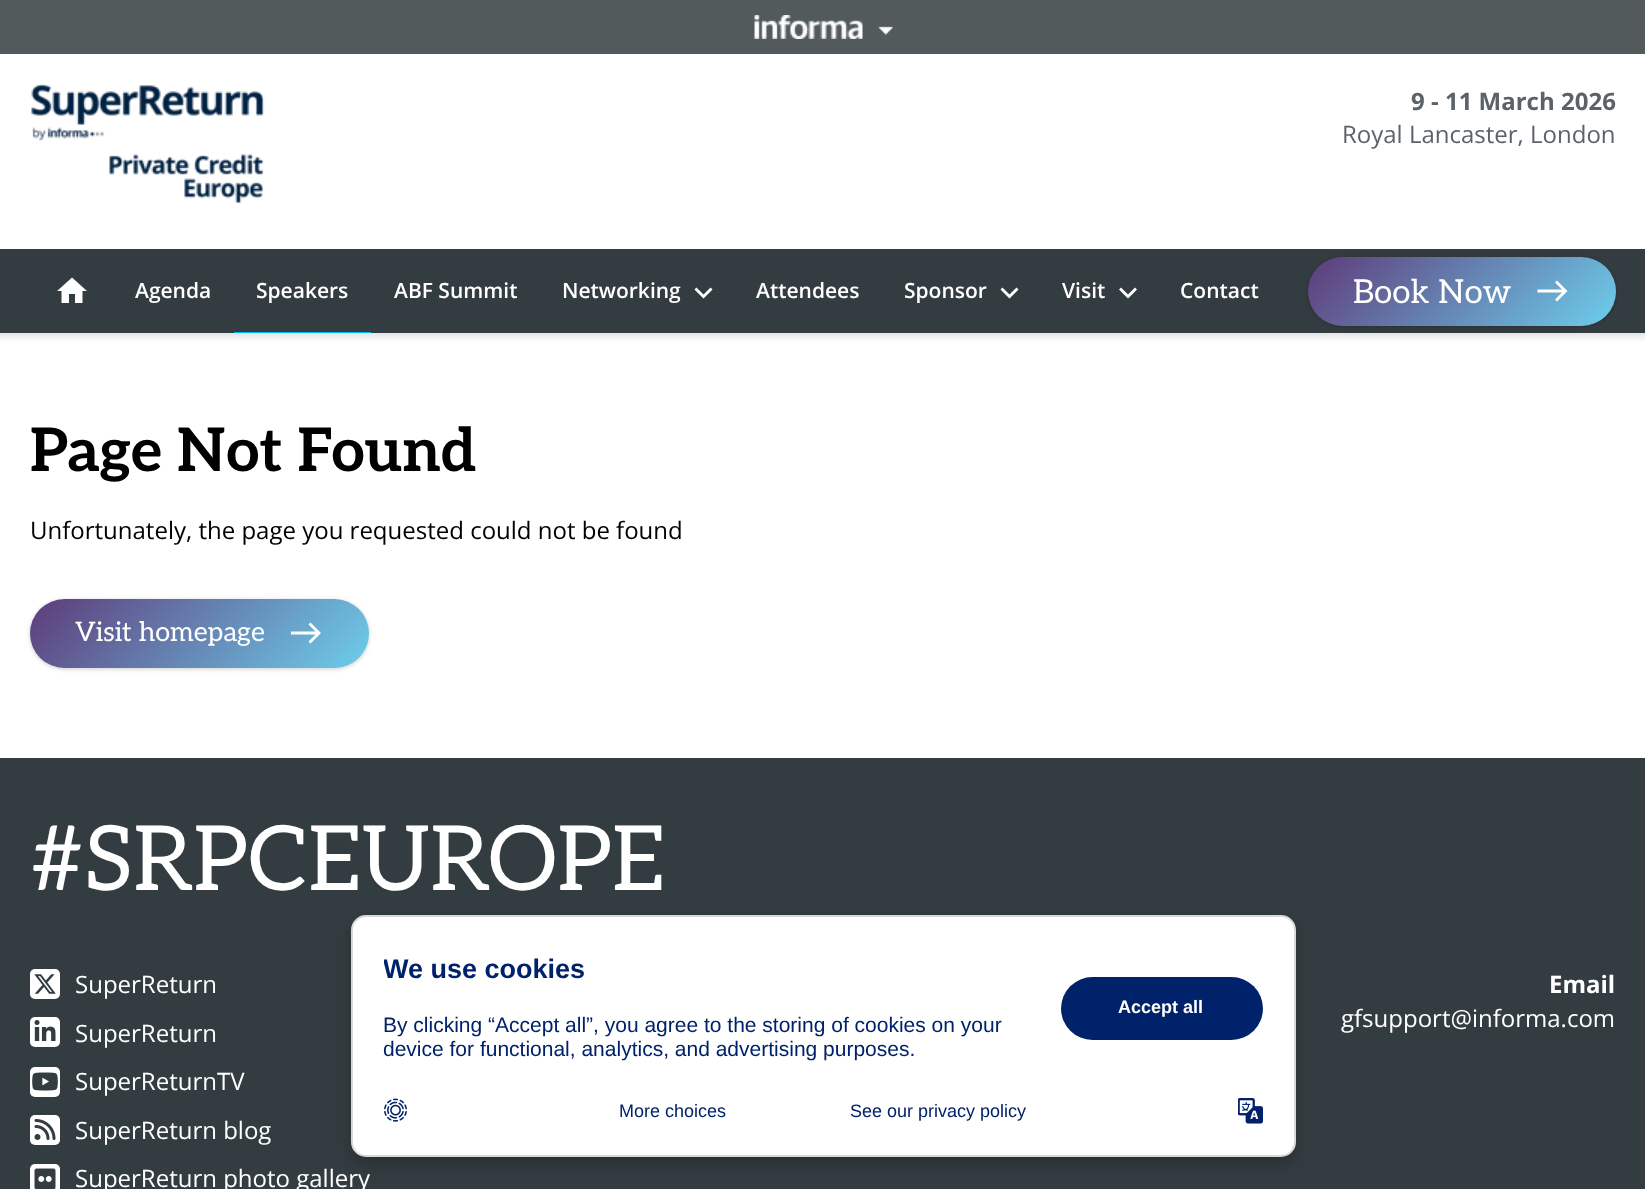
<?xml version="1.0" encoding="UTF-8"?>
<svg xmlns="http://www.w3.org/2000/svg" xmlns:xlink="http://www.w3.org/1999/xlink" width="1645" height="1189">
  <defs>
    <linearGradient id="g1" gradientUnits="userSpaceOnUse" x1="1368" y1="197" x2="1556" y2="385"><stop offset="0" stop-color="#5e3b7a" /><stop offset="1" stop-color="#6dceec" /></linearGradient>
    <linearGradient id="g2" gradientUnits="userSpaceOnUse" x1="823" y1="333" x2="823" y2="342"><stop offset="0" stop-color="#e5e5e5" /><stop offset="1" stop-color="#ffffff" /></linearGradient>
    <linearGradient id="g3" gradientUnits="userSpaceOnUse" x1="97" y1="531" x2="302" y2="735"><stop offset="0" stop-color="#5e3b7a" /><stop offset="1" stop-color="#6dceec" /></linearGradient>
    <clipPath id="clip1"><rect x="384" y="948" width="879" height="119" /></clipPath>
  </defs>
  <rect width="100%" height="100%" fill="#ffffff" />
  <rect width="1645" height="54" fill="#525a5c" />
  <image x="754" y="15" width="139" height="24" xlink:href="image1.png" />
  <image x="31" y="84" width="234" height="120" xlink:href="image2.png" />
  <rect y="249" width="1645" height="84" fill="#333c40" />
  <image x="57" y="277" width="30" height="26" xlink:href="image3.png" />
  <rect x="234" y="332" width="137" height="1" fill="#00b9f9" />
  <path d="M 710.5 287.5 l 2 2 l -9 9 l -9 -9 l 2 -2 l 7 7 z" fill="#ffffff" />
  <path d="M 1016.5 287.5 l 2 2 l -9 9 l -9 -9 l 2 -2 l 7 7 z" fill="#ffffff" />
  <path d="M 1135 287.5 l 2 2 l -9 9 l -9 -9 l 2 -2 l 7 7 z" fill="#ffffff" />
  <rect x="1308" y="258" width="308" height="69" rx="34.5" fill="#000000" fill-opacity="0.2" filter="blur(2px)" />
  <rect x="1308" y="257" width="308" height="69" rx="34.5" fill="url(#g1)" />
  <path d="M 1557 280.5 l -2 2 l 7 7 h -24.5 v 3 h 24.5 l -7 7 l 2 2 l 10.5 -10.5 z" fill="#ffffff" />
  <rect y="333" width="1645" height="8" fill="url(#g2)" />
  <rect x="30" y="600" width="339" height="69" rx="34.5" fill="#000000" fill-opacity="0.2" filter="blur(2px)" />
  <rect x="30" y="599" width="339" height="69" rx="34.5" fill="url(#g3)" />
  <path d="M 310.5 622.5 l -2 2 l 7 7 h -24.5 v 3 h 24.5 l -7 7 l 2 2 l 10.5 -10.5 z" fill="#ffffff" />
  <rect y="758" width="1645" height="431" fill="#333c40" />
  <rect x="30" y="969" width="30" height="30" rx="5" fill="#ffffff" />
  <image x="34" y="974" width="22" height="20" xlink:href="image4.png" />
  <rect x="30" y="1017" width="30" height="30" rx="5" fill="#ffffff" />
  <image x="34" y="1020" width="22" height="21" xlink:href="image5.png" />
  <rect x="30" y="1067" width="30" height="30" rx="5" fill="#ffffff" />
  <image x="32" y="1072" width="26" height="19" xlink:href="image6.png" />
  <rect x="30" y="1115" width="30" height="30" rx="5" fill="#ffffff" />
  <image x="34" y="1119" width="22" height="21" xlink:href="image7.png" />
  <rect x="30" y="1164" width="30" height="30" rx="5" fill="#ffffff" />
  <image x="34" y="1168" width="22" height="21" xlink:href="image8.png" />
  <rect x="351" y="923" width="945" height="241" rx="15" fill="#000000" fill-opacity="0.2" filter="blur(7.5px)" />
  <rect x="352" y="916" width="943" height="240" rx="14" fill="#ffffff" stroke="#d8d8d8" stroke-width="2" />
  <rect x="1061" y="977" width="202" height="63" rx="31.5" fill="#00226a" />
  <image x="384" y="1098" width="23" height="24" xlink:href="image9.png" />
  <image x="1238" y="1098" width="25" height="26" xlink:href="image10.png" />
  <text x="1411" y="110" style="font-family: Open Sans; font-size: 24px; font-weight: bold; fill: #5b6369">9 - 11 March 2026</text>
  <text x="1342" y="143" style="font-family: Open Sans; font-size: 24px; fill: #5b6369">Royal Lancaster, London</text>
  <text x="135" y="298" style="font-family: Open Sans; font-size: 21px; font-weight: 600; fill: #ffffff">Agenda</text>
  <text x="256" y="298" style="font-family: Open Sans; font-size: 21px; font-weight: 600; fill: #ffffff">Speakers</text>
  <text x="394" y="298" style="font-family: Open Sans; font-size: 21px; font-weight: 600; fill: #ffffff">ABF Summit</text>
  <text x="562" y="298" style="font-family: Open Sans; font-size: 21px; font-weight: 600; fill: #ffffff">Networking</text>
  <text x="756" y="298" style="font-family: Open Sans; font-size: 21px; font-weight: 600; fill: #ffffff">Attendees</text>
  <text x="904" y="298" style="font-family: Open Sans; font-size: 21px; font-weight: 600; fill: #ffffff">Sponsor</text>
  <text x="1062" y="298" style="font-family: Open Sans; font-size: 21px; font-weight: 600; fill: #ffffff">Visit</text>
  <text x="1180" y="298" style="font-family: Open Sans; font-size: 21px; font-weight: 600; fill: #ffffff">Contact</text>
  <text x="1353" y="303" style="font-family: Aleo; font-size: 33px; fill: #ffffff">Book Now</text>
  <text x="30" y="471" style="font-family: Aleo; font-size: 60px; font-weight: bold; fill: #000000">Page Not Found</text>
  <text x="30" y="539" style="font-family: Open Sans; font-size: 24px; fill: #000000">Unfortunately, the page you requested could not be found</text>
  <text x="75" y="641" style="font-family: Aleo; font-size: 27px; fill: #ffffff">Visit homepage</text>
  <text x="30" y="890" style="font-family: Aleo; font-size: 90px; fill: #ffffff">#SRPCEUROPE</text>
  <text x="75" y="993" style="font-family: Open Sans; font-size: 24px; fill: #ffffff">SuperReturn</text>
  <text x="75" y="1042" style="font-family: Open Sans; font-size: 24px; fill: #ffffff">SuperReturn</text>
  <text x="75" y="1090" style="font-family: Open Sans; font-size: 24px; fill: #ffffff">SuperReturnTV</text>
  <text x="75" y="1139" style="font-family: Open Sans; font-size: 24px; fill: #ffffff">SuperReturn blog</text>
  <text x="75" y="1187" style="font-family: Open Sans; font-size: 24px; fill: #ffffff">SuperReturn photo gallery</text>
  <text x="1549" y="993" style="font-family: Open Sans; font-size: 24px; font-weight: bold; fill: #ffffff">Email</text>
  <text x="1341" y="1027" style="font-family: Open Sans; font-size: 24px; fill: #ffffff">gfsupport@informa.com</text>
  <g clip-path="url(#clip1)">
    <text x="383" y="978" style="font-family: Liberation Sans; font-size: 27px; font-weight: bold; fill: #00226a">We use cookies</text>
  </g>
  <text x="383" y="1032" style="font-family: Liberation Sans; font-size: 21px; fill: #00226a">By clicking “Accept all”, you agree to the storing of cookies on your</text>
  <text x="383" y="1056" style="font-family: Liberation Sans; font-size: 21px; fill: #00226a">device for functional, analytics, and advertising purposes.</text>
  <text x="1118" y="1013" style="font-family: Liberation Sans; font-size: 18px; font-weight: bold; fill: #ffffff">Accept all</text>
  <text x="619" y="1117" style="font-family: Liberation Sans; font-size: 18px; fill: #00226a">More choices</text>
  <text x="850" y="1117" style="font-family: Liberation Sans; font-size: 18px; fill: #00226a">See our privacy policy</text>
</svg>
